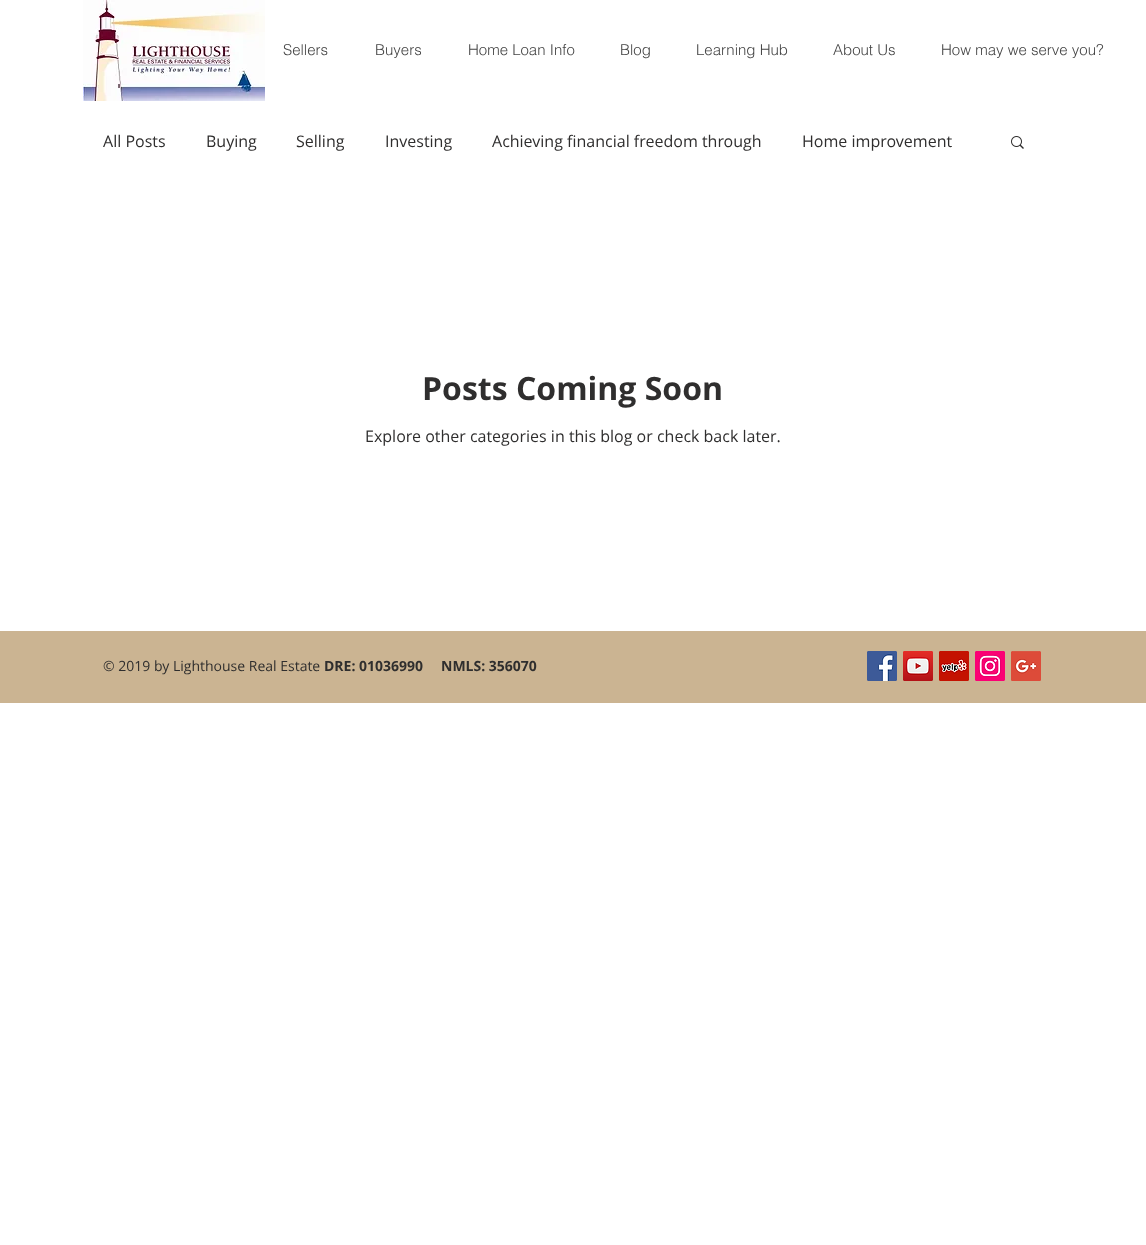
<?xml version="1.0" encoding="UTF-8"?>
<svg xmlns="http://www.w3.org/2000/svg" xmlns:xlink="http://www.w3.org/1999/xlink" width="1146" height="1245">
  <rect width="100%" height="100%" fill="#ffffff" />
  <image x="83" y="0" width="182" height="101" xlink:href="image1.png" />
  <image x="1011" y="136" width="13" height="13" xlink:href="image2.png" />
  <rect y="631" width="1146" height="72" fill="#cbb492" />
  <image x="867" y="651" width="30" height="30" xlink:href="image3.png" />
  <image x="903" y="651" width="30" height="30" xlink:href="image4.png" />
  <image x="939" y="651" width="30" height="30" xlink:href="image5.png" />
  <image x="975" y="651" width="30" height="30" xlink:href="image6.png" />
  <image x="1011" y="651" width="30" height="30" xlink:href="image7.png" />
  <text x="283" y="55" style="font-family: helvetica; font-size: 15px; font-weight: 300; fill: #444444">Sellers</text>
  <text x="375" y="55" style="font-family: helvetica; font-size: 15px; font-weight: 300; fill: #444444">Buyers</text>
  <text x="468" y="55" style="font-family: helvetica; font-size: 15px; font-weight: 300; fill: #444444">Home Loan Info</text>
  <text x="620" y="55" style="font-family: helvetica; font-size: 15px; font-weight: 300; fill: #444444">Blog</text>
  <text x="696" y="55" style="font-family: helvetica; font-size: 15px; font-weight: 300; fill: #444444">Learning Hub</text>
  <text x="833" y="55" style="font-family: helvetica; font-size: 15px; font-weight: 300; fill: #444444">About Us</text>
  <text x="941" y="55" style="font-family: helvetica; font-size: 15px; font-weight: 300; fill: #444444">How may we serve you?</text>
  <text x="103" y="147" style="font-family: Open Sans; font-size: 16px; fill: #2f2e2e">All Posts</text>
  <text x="206" y="147" style="font-family: Open Sans; font-size: 16px; fill: #2f2e2e">Buying</text>
  <text x="296" y="147" style="font-family: Open Sans; font-size: 16px; fill: #2f2e2e">Selling</text>
  <text x="385" y="147" style="font-family: Open Sans; font-size: 16px; fill: #2f2e2e">Investing</text>
  <text x="492" y="147" style="font-family: Open Sans; font-size: 16px; fill: #2f2e2e">Achieving financial freedom through</text>
  <text x="802" y="147" style="font-family: Open Sans; font-size: 16px; fill: #2f2e2e">Home improvement</text>
  <text x="422" y="400" style="font-family: Open Sans; font-size: 32px; font-weight: bold; fill: #2f2e2e">Posts Coming Soon</text>
  <text x="365" y="442" style="font-family: Open Sans; font-size: 16px; fill: #2f2e2e">Explore other categories in this blog or check back later.</text>
  <text x="103" y="671" style="font-family: Open Sans; font-size: 14px; fill: #2f2e2e">© 2019 by Lighthouse Real Estate</text>
  <text x="324" y="671" style="font-family: Open Sans; font-size: 14px; font-weight: bold; fill: #2f2e2e">DRE: 01036990</text>
  <text x="441" y="671" style="font-family: Open Sans; font-size: 14px; font-weight: bold; fill: #2f2e2e">NMLS: 356070</text>
</svg>
